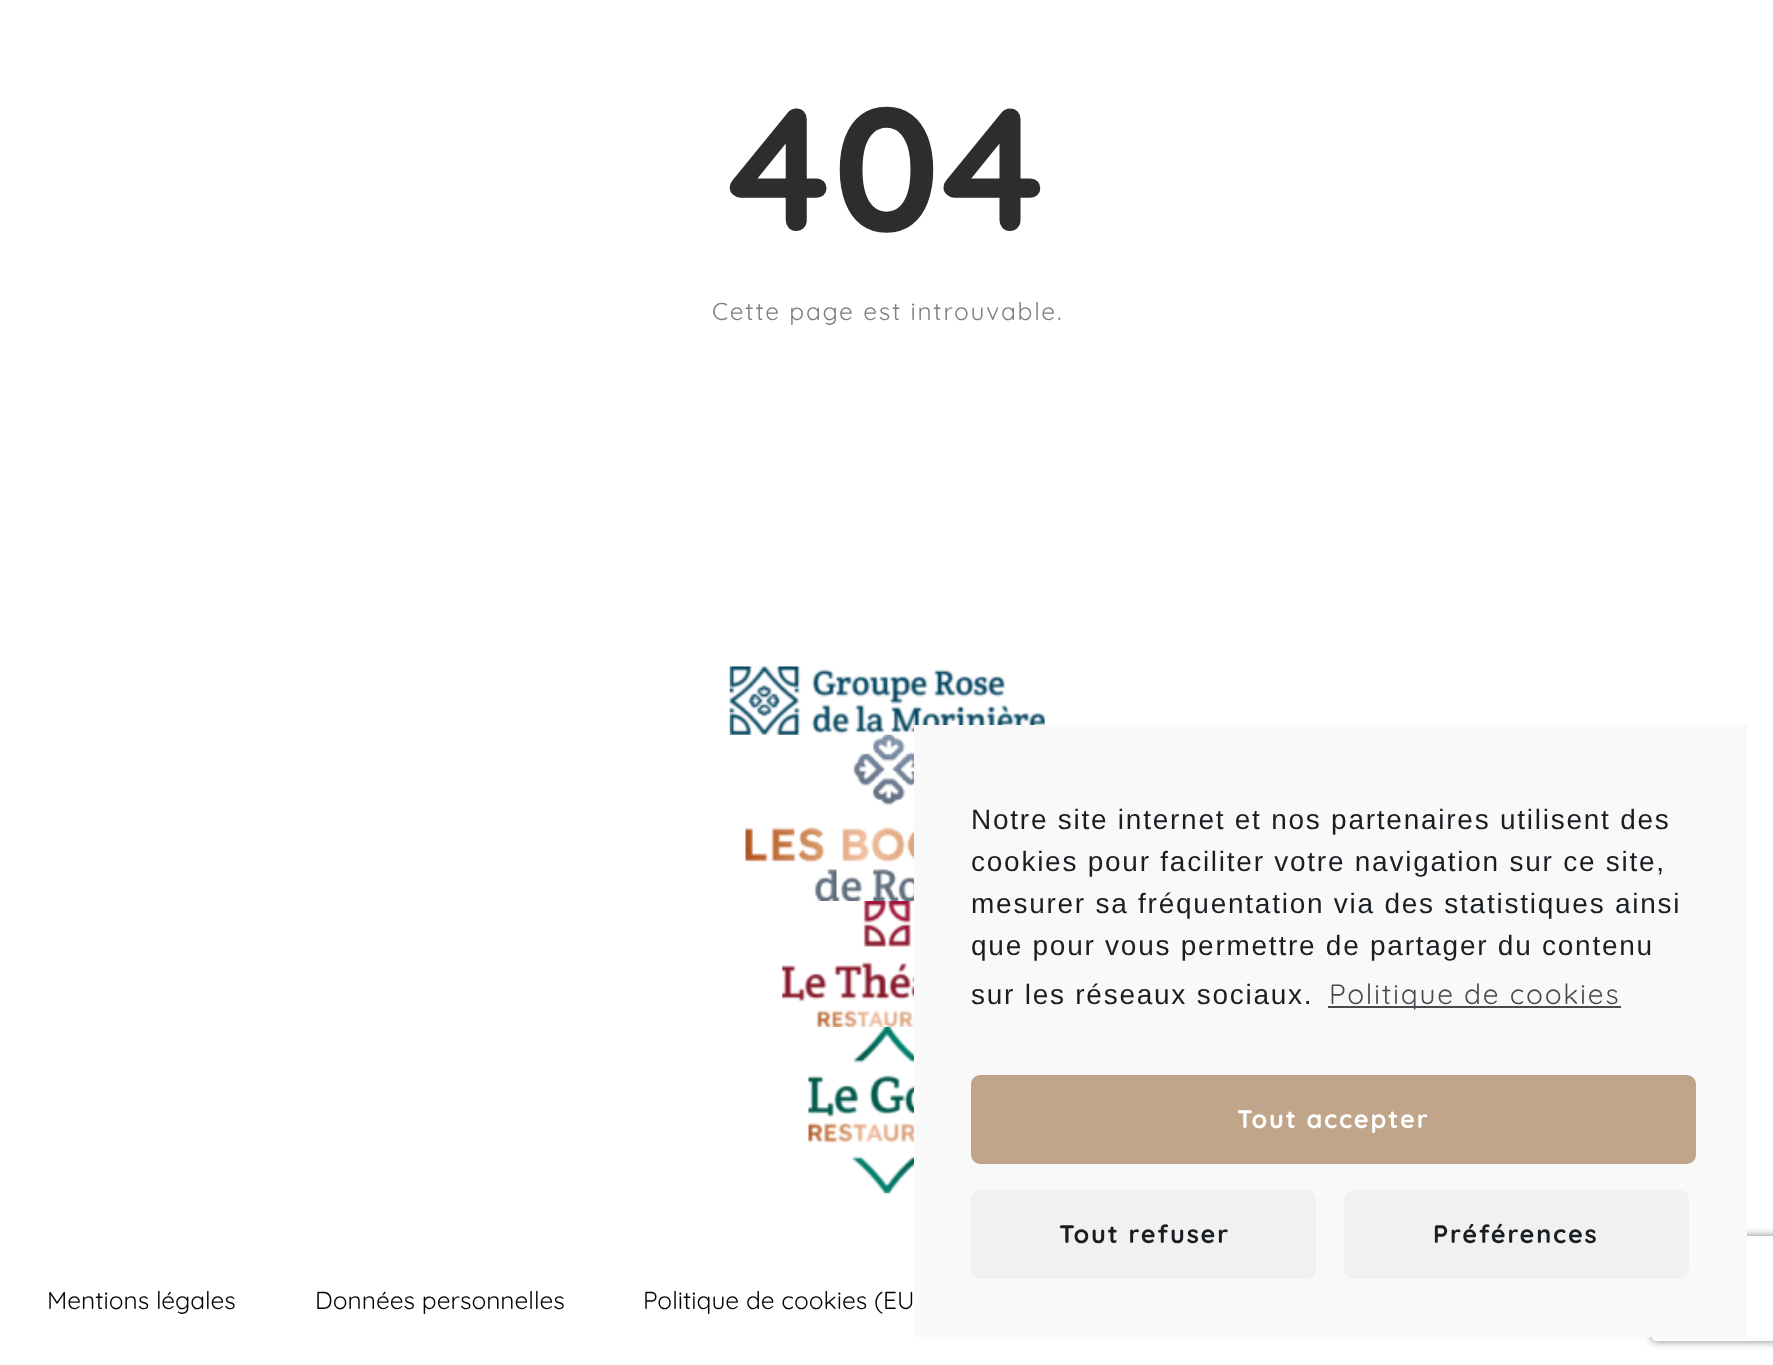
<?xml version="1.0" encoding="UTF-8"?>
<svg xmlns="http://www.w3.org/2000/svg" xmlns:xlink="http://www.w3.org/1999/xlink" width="1773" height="1365">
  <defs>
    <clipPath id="clip1"><path d="M 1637 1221 h 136 v 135 h -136 z m 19 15 h 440 c 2 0 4 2 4 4 v 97 c 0 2 -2 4 -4 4 h -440 c -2 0 -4 -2 -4 -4 v -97 c 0 -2 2 -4 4 -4 z" clip-rule="evenodd" /></clipPath>
  </defs>
  <rect width="100%" height="100%" fill="#ffffff" />
  <image x="729" y="666" width="316" height="69" xlink:href="image1.png" />
  <image x="745" y="734" width="169" height="167" xlink:href="image2.png" />
  <image x="782" y="901" width="132" height="126" xlink:href="image3.png" />
  <image x="808" y="1027" width="106" height="167" xlink:href="image4.png" />
  <g clip-path="url(#clip1)">
    <rect x="1652" y="1236" width="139" height="105" rx="4" fill="#808080" filter="blur(4.5px)" />
  </g>
  <rect x="914" y="725" width="833" height="612" fill="#f9f9f9" />
  <rect x="1328" y="1006" width="293" height="2" fill="#464a4e" />
  <rect x="973" y="1077" width="721" height="85" rx="7" fill="#c0a58a" stroke="#c0a58a" stroke-width="4" />
  <rect x="971" y="1190" width="345" height="89" rx="9" fill="#f1f1f1" />
  <rect x="1344" y="1190" width="345" height="89" rx="9" fill="#f1f1f1" />
  <text x="728" y="231" style="font-family: Quicksand; font-size: 175px; font-weight: bold; letter-spacing: 1.75px; fill: #2d2d2d">404</text>
  <text x="712" y="320" style="font-family: Quicksand; font-size: 24.5px; letter-spacing: 1.75px; fill: #7e7e7e">Cette page est introuvable.</text>
  <text x="47" y="1309" style="font-family: Quicksand; font-size: 24.5px; fill: #000000">Mentions légales</text>
  <text x="315" y="1309" style="font-family: Quicksand; font-size: 24.5px; fill: #000000">Données personnelles</text>
  <text x="643" y="1309" style="font-family: Quicksand; font-size: 24.5px; fill: #000000">Politique de cookies (EU</text>
  <text x="971" y="829" style="font-family: Liberation Sans; font-size: 28px; letter-spacing: 1.75px; fill: #191e23">Notre site internet et nos partenaires utilisent des</text>
  <text x="971" y="871" style="font-family: Liberation Sans; font-size: 28px; letter-spacing: 1.75px; fill: #191e23">cookies pour faciliter votre navigation sur ce site,</text>
  <text x="971" y="913" style="font-family: Liberation Sans; font-size: 28px; letter-spacing: 1.75px; fill: #191e23">mesurer sa fréquentation via des statistiques ainsi</text>
  <text x="971" y="955" style="font-family: Liberation Sans; font-size: 28px; letter-spacing: 1.75px; fill: #191e23">que pour vous permettre de partager du contenu</text>
  <text x="971" y="1004" style="font-family: Liberation Sans; font-size: 28px; letter-spacing: 1.75px; fill: #191e23">sur les réseaux sociaux.</text>
  <text x="1329" y="1004" style="font-family: Quicksand; font-size: 28px; letter-spacing: 1.75px; fill: #464a4e">Politique de cookies</text>
  <text x="1237" y="1128" style="font-family: Quicksand; font-size: 25.25px; font-weight: bold; letter-spacing: 1.75px; fill: #ffffff">Tout accepter</text>
  <text x="1059" y="1243" style="font-family: Quicksand; font-size: 25.25px; font-weight: bold; letter-spacing: 1.75px; fill: #191e23">Tout refuser</text>
  <text x="1433" y="1243" style="font-family: Quicksand; font-size: 25.25px; font-weight: bold; letter-spacing: 1.75px; fill: #191e23">Préférences</text>
</svg>
